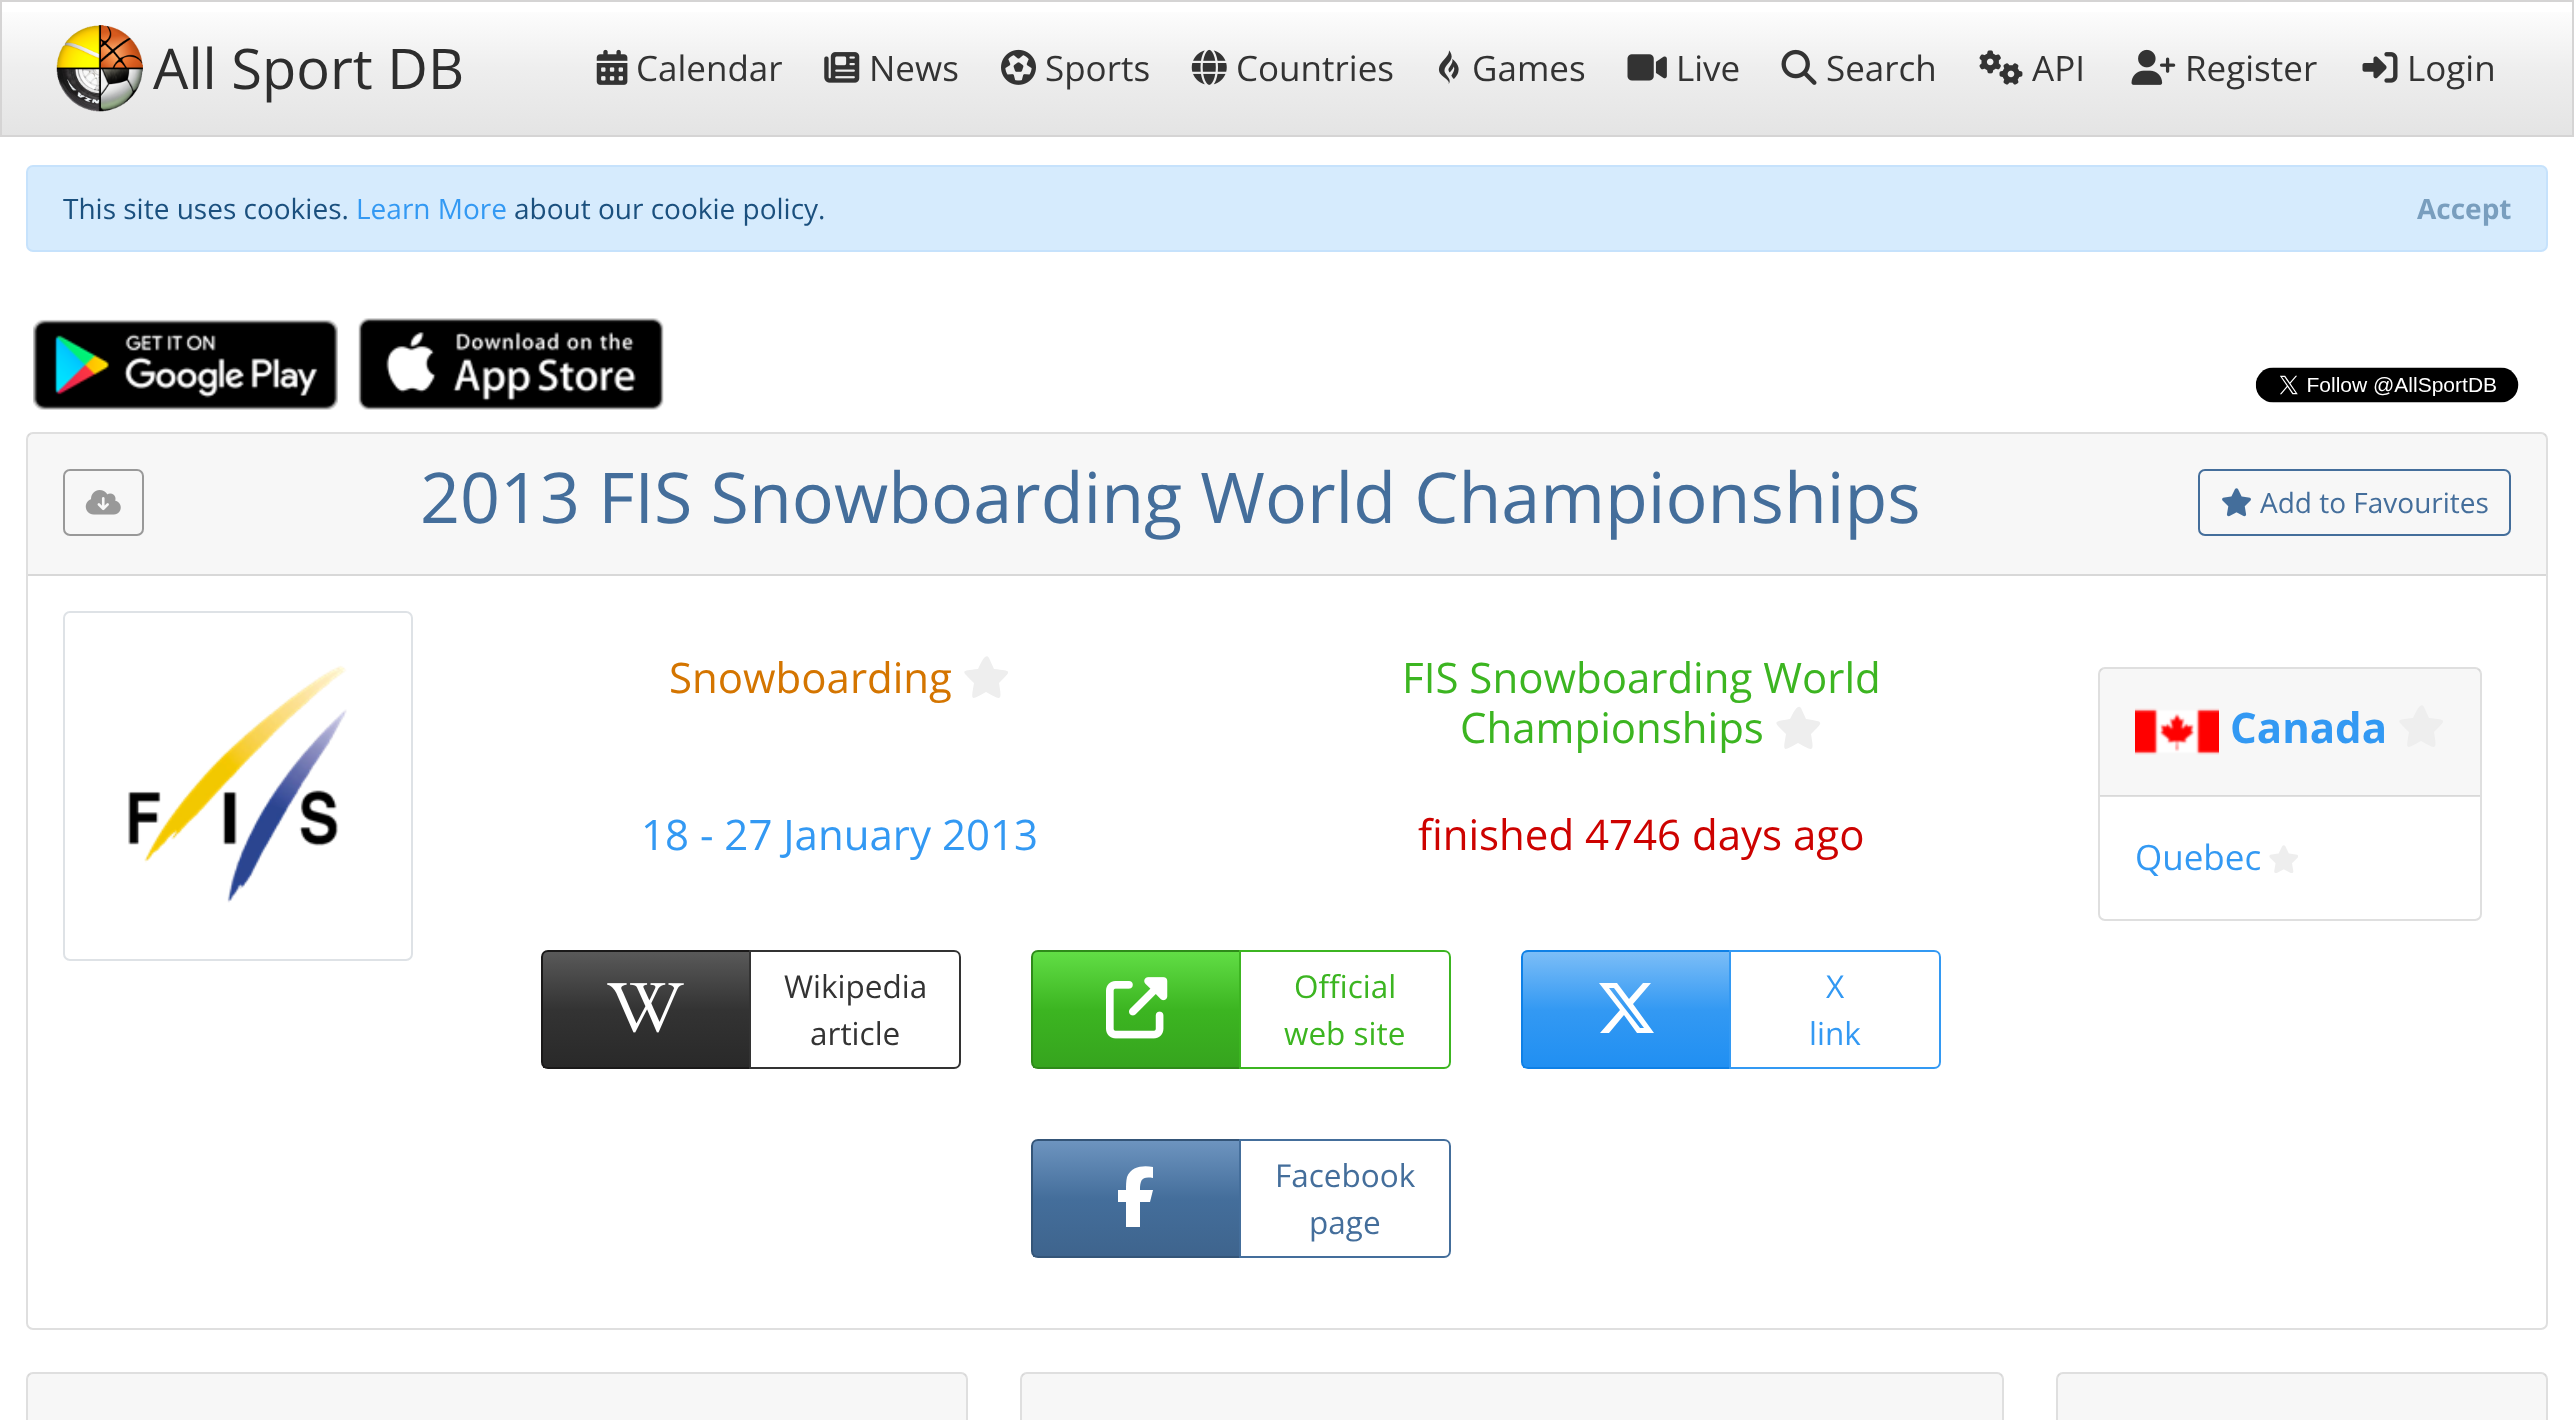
<?xml version="1.0" encoding="UTF-8"?>
<svg xmlns="http://www.w3.org/2000/svg" xmlns:xlink="http://www.w3.org/1999/xlink" width="2574" height="1420">
  <defs>
    <linearGradient id="g1" gradientUnits="userSpaceOnUse" x1="1287" y1="1.7" x2="1287" y2="135"><stop offset="0" stop-color="#ffffff" /><stop offset="0.5" stop-color="#eeeeee" /><stop offset="1" stop-color="#e4e4e4" /></linearGradient>
    <linearGradient id="g2" gradientUnits="userSpaceOnUse" x1="646" y1="952" x2="646" y2="1068"><stop offset="0" stop-color="#595959" /><stop offset="0.5" stop-color="#333333" /><stop offset="1" stop-color="#292929" /></linearGradient>
    <linearGradient id="g3" gradientUnits="userSpaceOnUse" x1="1136" y1="952" x2="1136" y2="1068"><stop offset="0" stop-color="#61dd45" /><stop offset="0.5" stop-color="#3cb521" /><stop offset="1" stop-color="#36a41e" /></linearGradient>
    <linearGradient id="g4" gradientUnits="userSpaceOnUse" x1="1626" y1="952" x2="1626" y2="1068"><stop offset="0" stop-color="#7bbdf7" /><stop offset="0.5" stop-color="#3399f3" /><stop offset="1" stop-color="#208ff2" /></linearGradient>
    <linearGradient id="g5" gradientUnits="userSpaceOnUse" x1="1136" y1="1141" x2="1136" y2="1257"><stop offset="0" stop-color="#6d94bf" /><stop offset="0.5" stop-color="#446e9b" /><stop offset="1" stop-color="#3e648d" /></linearGradient>
  </defs>
  <rect width="100%" height="100%" fill="#ffffff" />
  <rect x="2" y="12" width="2570" height="123" fill="url(#g1)" />
  <rect x="1" y="1" width="2572" height="135" fill="none" stroke="#d5d4d4" stroke-width="2" />
  <image x="56" y="25" width="87" height="87" xlink:href="image1.png" />
  <image x="596" y="49" width="32" height="36" xlink:href="image2.png" />
  <image x="824" y="52" width="36" height="31" xlink:href="image3.png" />
  <image x="1001" y="49" width="35" height="36" xlink:href="image4.png" />
  <image x="1191" y="49" width="36" height="36" xlink:href="image5.png" />
  <image x="1438" y="50" width="21" height="34" xlink:href="image6.png" />
  <image x="1627" y="54" width="40" height="27" xlink:href="image7.png" />
  <image x="1781" y="49" width="36" height="36" xlink:href="image8.png" />
  <image x="1979" y="50" width="44" height="35" xlink:href="image9.png" />
  <image x="2131" y="49" width="45" height="36" xlink:href="image10.png" />
  <image x="2362" y="52" width="36" height="31" xlink:href="image11.png" />
  <rect x="27" y="166" width="2520" height="85" rx="6" fill="#d6ebfd" stroke="#c6e2fc" stroke-width="2" />
  <image x="33" y="319" width="305" height="91" xlink:href="image12.png" />
  <image x="358" y="318" width="306" height="92" xlink:href="image13.png" />
  <image x="2255" y="367" width="264" height="36" xlink:href="image14.png" />
  <rect x="27" y="433" width="2520" height="896" rx="6" fill="none" stroke="#dfdfdf" stroke-width="2" />
  <rect x="28" y="434" width="2518" height="140" fill="#000000" fill-opacity="0.03" />
  <rect x="28" y="574" width="2518" height="2" fill="#d8d8d8" />
  <rect x="64" y="470" width="79" height="65" rx="6" fill="none" stroke="#999999" stroke-width="2" />
  <image x="85" y="490" width="36" height="25" xlink:href="image15.png" />
  <rect x="2199" y="470" width="311" height="65" rx="6" fill="none" stroke="#446e9b" stroke-width="2" />
  <image x="2222" y="488" width="29" height="29" xlink:href="image16.png" />
  <rect x="64" y="612" width="348" height="348" rx="6" fill="none" stroke="#dee2e6" stroke-width="2" />
  <image x="128" y="665" width="219" height="238" xlink:href="image17.png" />
  <path d="M 989 658 c -4 -7 -10 10 -11 11 c -18 2 -17 1 -4 14 c -3 18 -4 18 12 9 c 16 9 16 9 13 -9 c 13 -13 13 -12 -5 -14 z" fill="#eeeeee" />
  <path d="M 1801 708 c -4 -6 -10 10 -11 11 c -18 3 -17 2 -4 15 c -3 18 -4 18 12 9 c 16 9 16 9 13 -9 c 13 -13 13 -12 -5 -15 z" fill="#eeeeee" />
  <rect x="543" y="952" width="206" height="116" fill="url(#g2)" />
  <path d="M 548 951 h 202 v 117 h -202 c -3.5 0 -6 -2.5 -6 -6 v -105 c 0 -3.5 2.5 -6 6 -6 z" fill="none" stroke="#1a1919" stroke-width="2" />
  <image x="607" y="983" width="77" height="50" xlink:href="image18.png" />
  <path d="M 750 951 h 204 c 3.5 0 6 2.5 6 6 v 105 c 0 3.5 -2.5 6 -6 6 h -204 z" fill="none" stroke="#333333" stroke-width="2" />
  <rect x="1033" y="952" width="206" height="116" fill="url(#g3)" />
  <path d="M 1038 951 h 202 v 117 h -202 c -3.5 0 -6 -2.5 -6 -6 v -105 c 0 -3.5 2.5 -6 6 -6 z" fill="none" stroke="#2e8a19" stroke-width="2" />
  <image x="1106" y="977" width="62" height="62" xlink:href="image19.png" />
  <path d="M 1240 951 h 204 c 3.5 0 6 2.5 6 6 v 105 c 0 3.5 -2.5 6 -6 6 h -204 z" fill="none" stroke="#3cb521" stroke-width="2" />
  <rect x="1523" y="952" width="206" height="116" fill="url(#g4)" />
  <path d="M 1528 951 h 202 v 117 h -202 c -3.5 0 -6 -2.5 -6 -6 v -105 c 0 -3.5 2.5 -6 6 -6 z" fill="none" stroke="#0e80e6" stroke-width="2" />
  <path d="M 1643 983 h 8 h -8 h 8 l -18 21 l 21 29 h -17 l -13 -18 l -15 18 h -9 l 20 -23 l -21 -27 h 18 l 12 16 z m -3 45 h 4 h -4 h 4 l -30 -40 h -5 z" fill="#ffffff" />
  <path d="M 1730 951 h 204 c 3.5 0 6 2.5 6 6 v 105 c 0 3.5 -2.5 6 -6 6 h -204 z" fill="none" stroke="#3399f3" stroke-width="2" />
  <rect x="1033" y="1141" width="206" height="116" fill="url(#g5)" />
  <path d="M 1038 1140 h 202 v 117 h -202 c -3.5 0 -6 -2.5 -6 -6 v -105 c 0 -3.5 2.5 -6 6 -6 z" fill="none" stroke="#345578" stroke-width="2" />
  <path d="M 1126 1202 v 25 v -25 v 25 h 14 v -25 h 10 l 3 -12 h -13 c 0 -10 2 -14 13 -12 v -11 c -9 -2 -22 -1 -26 10 c -1 4 -1 9 -1 13 h -8 v 12 z" fill="#ffffff" />
  <path d="M 1240 1140 h 204 c 3.5 0 6 2.5 6 6 v 105 c 0 3.5 -2.5 6 -6 6 h -204 z" fill="none" stroke="#446e9b" stroke-width="2" />
  <rect x="2099" y="668" width="382" height="252" rx="6" fill="none" stroke="#dfdfdf" stroke-width="2" />
  <rect x="2100" y="669" width="380" height="127" fill="#000000" fill-opacity="0.03" />
  <rect x="2100" y="795" width="380" height="2" fill="#000000" fill-opacity="0.12" />
  <image x="2135" y="708" width="84" height="47" xlink:href="image20.png" />
  <path d="M 2424 707 c -4 -7 -10 10 -11 11 c -18 2 -17 1 -4 14 c -3 18 -4 18 12 9 c 16 9 16 9 13 -9 c 13 -13 13 -12 -5 -14 z" fill="#eeeeee" />
  <image x="2269" y="845" width="29" height="28" xlink:href="image21.png" />
  <rect x="27" y="1373" width="940" height="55" rx="6" fill="none" stroke="#dfdfdf" stroke-width="2" />
  <rect x="28" y="1374" width="938" height="46" fill="#000000" fill-opacity="0.03" />
  <rect x="1021" y="1373" width="982" height="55" rx="6" fill="none" stroke="#dfdfdf" stroke-width="2" />
  <rect x="1022" y="1374" width="980" height="46" fill="#000000" fill-opacity="0.03" />
  <rect x="2057" y="1373" width="490" height="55" rx="6" fill="none" stroke="#dfdfdf" stroke-width="2" />
  <rect x="2058" y="1374" width="488" height="46" fill="#000000" fill-opacity="0.03" />
  <text x="153" y="89" style="font-family: Open Sans; font-size: 56px; fill: #2d2d2d">All Sport DB</text>
  <text x="636" y="81" style="font-family: Open Sans; font-size: 35px; fill: #333333">Calendar</text>
  <text x="869" y="81" style="font-family: Open Sans; font-size: 35px; fill: #333333">News</text>
  <text x="1045" y="81" style="font-family: Open Sans; font-size: 35px; fill: #333333">Sports</text>
  <text x="1236" y="81" style="font-family: Open Sans; font-size: 35px; fill: #333333">Countries</text>
  <text x="1472" y="81" style="font-family: Open Sans; font-size: 35px; fill: #333333">Games</text>
  <text x="1676" y="81" style="font-family: Open Sans; font-size: 35px; fill: #333333">Live</text>
  <text x="1826" y="81" style="font-family: Open Sans; font-size: 35px; fill: #333333">Search</text>
  <text x="2032" y="81" style="font-family: Open Sans; font-size: 35px; fill: #333333">API</text>
  <text x="2185" y="81" style="font-family: Open Sans; font-size: 35px; fill: #333333">Register</text>
  <text x="2407" y="81" style="font-family: Open Sans; font-size: 35px; fill: #333333">Login</text>
  <text x="63" y="219" style="font-family: Open Sans; font-size: 28px; fill: #1b507e">This site uses cookies.</text>
  <text x="356" y="219" style="font-family: Open Sans; font-size: 28px; fill: #3399f3">Learn More</text>
  <text x="514" y="219" style="font-family: Open Sans; font-size: 28px; fill: #1b507e">about our cookie policy.</text>
  <text x="2417" y="219" style="font-family: Open Sans; font-size: 28px; font-weight: bold; fill: #799ebe">Accept</text>
  <text x="420" y="523" style="font-family: Open Sans; font-size: 70px; fill: #446e9b">2013 FIS Snowboarding World Championships</text>
  <text x="2260" y="513" style="font-family: Open Sans; font-size: 28px; fill: #446e9b">Add to Favourites</text>
  <text x="669" y="693" style="font-family: Open Sans; font-size: 42px; fill: #d47500">Snowboarding</text>
  <text x="1402" y="693" style="font-family: Open Sans; font-size: 42px; fill: #3cb521">FIS Snowboarding World</text>
  <text x="1460" y="743" style="font-family: Open Sans; font-size: 42px; fill: #3cb521">Championships</text>
  <text x="641" y="850" style="font-family: Open Sans; font-size: 42px; fill: #3399f3">18 - 27 January 2013</text>
  <text x="1418" y="850" style="font-family: Open Sans; font-size: 42px; fill: #cd0200">finished 4746 days ago</text>
  <text x="784" y="998" style="font-family: Open Sans; font-size: 31.5px; fill: #333333">Wikipedia</text>
  <text x="810" y="1045" style="font-family: Open Sans; font-size: 31.5px; fill: #333333">article</text>
  <text x="1294" y="998" style="font-family: Open Sans; font-size: 31.5px; fill: #3cb521">Official</text>
  <text x="1284" y="1045" style="font-family: Open Sans; font-size: 31.5px; fill: #3cb521">web site</text>
  <text x="1826" y="998" style="font-family: Open Sans; font-size: 31.5px; fill: #3399f3">X</text>
  <text x="1809" y="1045" style="font-family: Open Sans; font-size: 31.5px; fill: #3399f3">link</text>
  <text x="1275" y="1187" style="font-family: Open Sans; font-size: 31.5px; fill: #446e9b">Facebook</text>
  <text x="1309" y="1234" style="font-family: Open Sans; font-size: 31.5px; fill: #446e9b">page</text>
  <text x="2230" y="743" style="font-family: Open Sans; font-size: 42px; font-weight: bold; fill: #3399f3">Canada</text>
  <text x="2135" y="870" style="font-family: Open Sans; font-size: 35px; fill: #3399f3">Quebec</text>
</svg>
